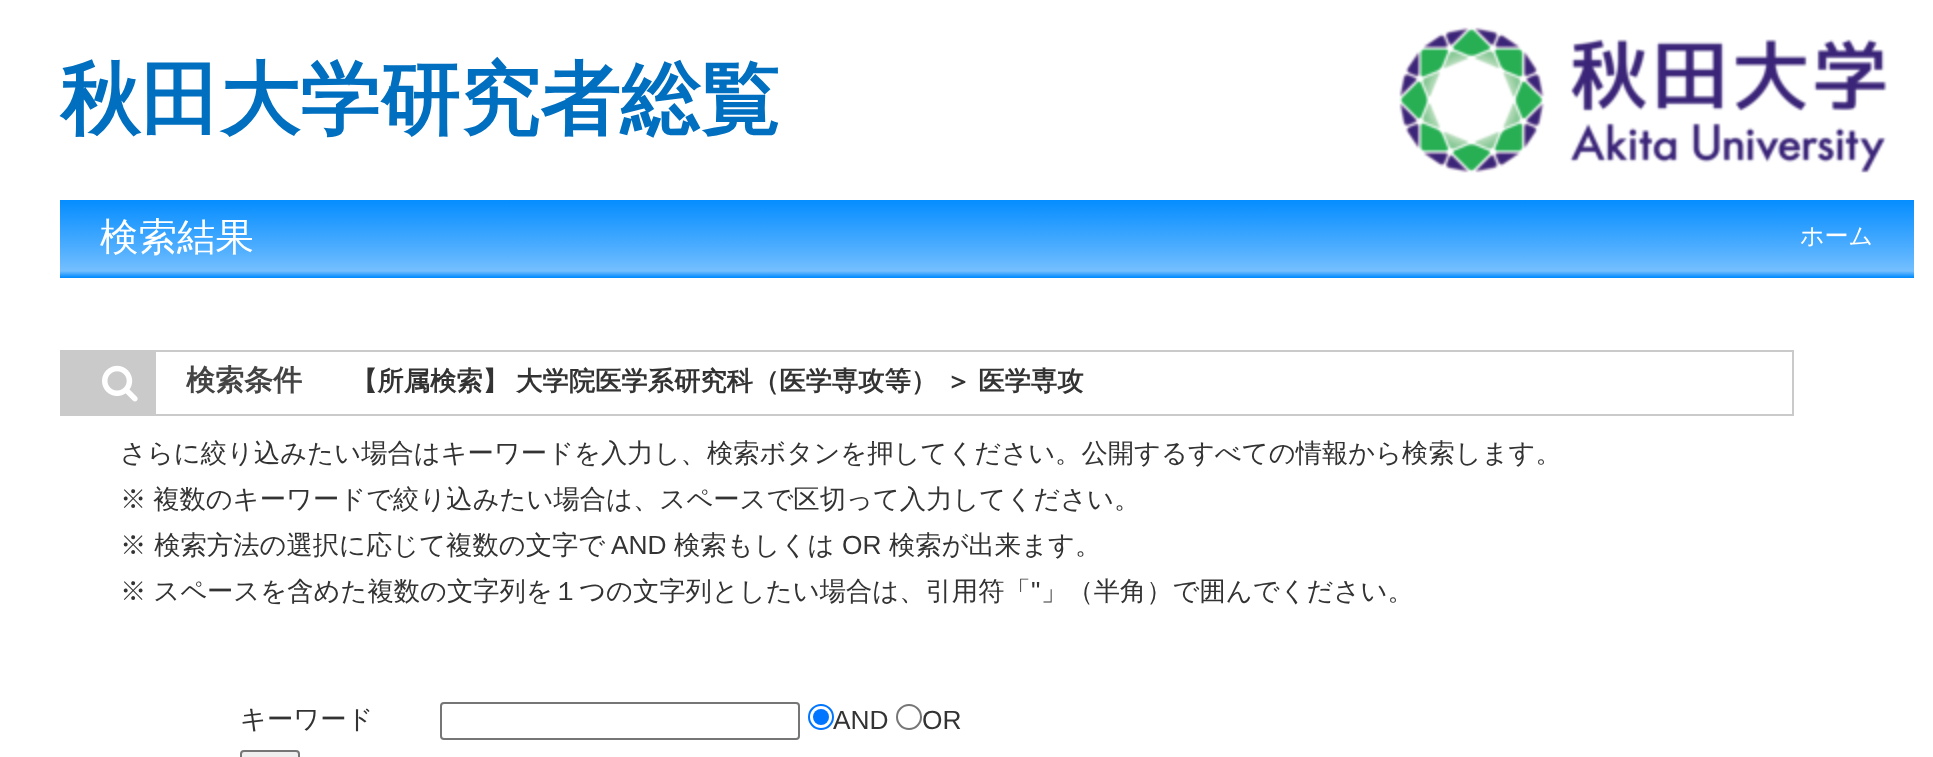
<?xml version="1.0" encoding="UTF-8"?>
<svg xmlns="http://www.w3.org/2000/svg" xmlns:xlink="http://www.w3.org/1999/xlink" width="1933" height="757">
  <defs>
    <linearGradient id="g1" gradientUnits="userSpaceOnUse" x1="987" y1="200" x2="987" y2="278"><stop offset="0" stop-color="#058dff" /><stop offset="0.68" stop-color="#55b1ff" /><stop offset="0.91" stop-color="#75bfff" /><stop offset="0.99" stop-color="#058dff" /><stop offset="1" stop-color="#058dff" /></linearGradient>
  </defs>
  <rect width="100%" height="100%" fill="#ffffff" />
  <image x="1399" y="27" width="488" height="146" xlink:href="image1.png" />
  <rect x="60" y="200" width="1854" height="78" fill="url(#g1)" />
  <rect x="61" y="351" width="1732" height="64" fill="none" stroke="#cacaca" stroke-width="2" />
  <rect x="62" y="352" width="94" height="62" fill="#cacaca" />
  <image x="102" y="365" width="36" height="37" xlink:href="image2.png" />
  <rect x="441" y="703" width="358" height="36" rx="3" fill="none" stroke="#767676" stroke-width="2" />
  <circle cx="821" cy="717" r="12" fill="none" stroke="#0075ff" stroke-width="2" />
  <circle cx="821" cy="717" r="8" fill="#0075ff" />
  <circle cx="909" cy="717" r="12" fill="none" stroke="#767676" stroke-width="2" />
  <rect x="241" y="751" width="58" height="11" rx="3" fill="#efefef" stroke="#767676" stroke-width="2" />
  <text x="60" y="127" style="font-family: WenQuanYi Zen Hei; font-size: 80px; font-weight: bold; fill: #006fbf">秋田大学研究者総覧</text>
  <text x="100" y="250" style="font-family: WenQuanYi Zen Hei; font-size: 38.5px; font-weight: 500; fill: #ffffff">検索結果</text>
  <text x="1800" y="244" style="font-family: WenQuanYi Zen Hei; font-size: 24px; font-weight: 500; fill: #ffffff">ホーム</text>
  <text x="186" y="390" style="font-family: WenQuanYi Zen Hei; font-size: 29px; font-weight: bold; fill: #444444">検索条件</text>
  <text x="351" y="390" style="font-family: WenQuanYi Zen Hei; font-size: 26.32px; font-weight: bold; fill: #333333">【所属検索】</text>
  <text x="516" y="390" style="font-family: WenQuanYi Zen Hei; font-size: 26.32px; font-weight: bold; fill: #333333">大学院医学系研究科（医学専攻等）</text>
  <text x="945" y="390" word-spacing="-1" style="font-family: WenQuanYi Zen Hei; font-size: 26.32px; font-weight: bold; fill: #333333">＞ 医学専攻</text>
  <text x="120" y="462" style="font-family: WenQuanYi Zen Hei; font-size: 26.32px; font-weight: 500; fill: #333333">さらに絞り込みたい場合はキーワードを入力し、検索ボタンを押してください。公開するすべての情報から検索します。</text>
  <text x="120" y="508" word-spacing="-1" style="font-family: WenQuanYi Zen Hei; font-size: 26.32px; font-weight: 500; fill: #333333">※ 複数のキーワードで絞り込みたい場合は、スペースで区切って入力してください。</text>
  <text x="120" y="554" style="font-family: WenQuanYi Zen Hei; font-size: 26.32px; font-weight: 500; fill: #333333">※ 検索方法の選択に応じて複数の文字で</text>
  <text x="611" y="554" style="font-family: Liberation Sans; font-size: 26.32px; fill: #333333">AND</text>
  <text x="674" y="554" style="font-family: WenQuanYi Zen Hei; font-size: 26.32px; font-weight: 500; fill: #333333">検索もしくは</text>
  <text x="842" y="554" style="font-family: Liberation Sans; font-size: 26.32px; fill: #333333">OR</text>
  <text x="889" y="554" style="font-family: WenQuanYi Zen Hei; font-size: 26.32px; font-weight: 500; fill: #333333">検索が出来ます。</text>
  <text x="120" y="600" word-spacing="-1" style="font-family: WenQuanYi Zen Hei; font-size: 26.32px; font-weight: 500; fill: #333333">※ スペースを含めた複数の文字列を１つの文字列としたい場合は、引用符「</text>
  <text x="1031" y="600" style="font-family: Liberation Sans; font-size: 26.32px; fill: #333333">"</text>
  <text x="1041" y="600" style="font-family: WenQuanYi Zen Hei; font-size: 26.32px; font-weight: 500; fill: #333333">」（半角）で囲んでください。</text>
  <text x="240" y="728" style="font-family: WenQuanYi Zen Hei; font-size: 26.32px; font-weight: 500; fill: #333333">キーワード</text>
  <text x="833" y="729" style="font-family: Liberation Sans; font-size: 26.32px; fill: #333333">AND</text>
  <text x="922" y="729" style="font-family: Liberation Sans; font-size: 26.32px; fill: #333333">OR</text>
</svg>
